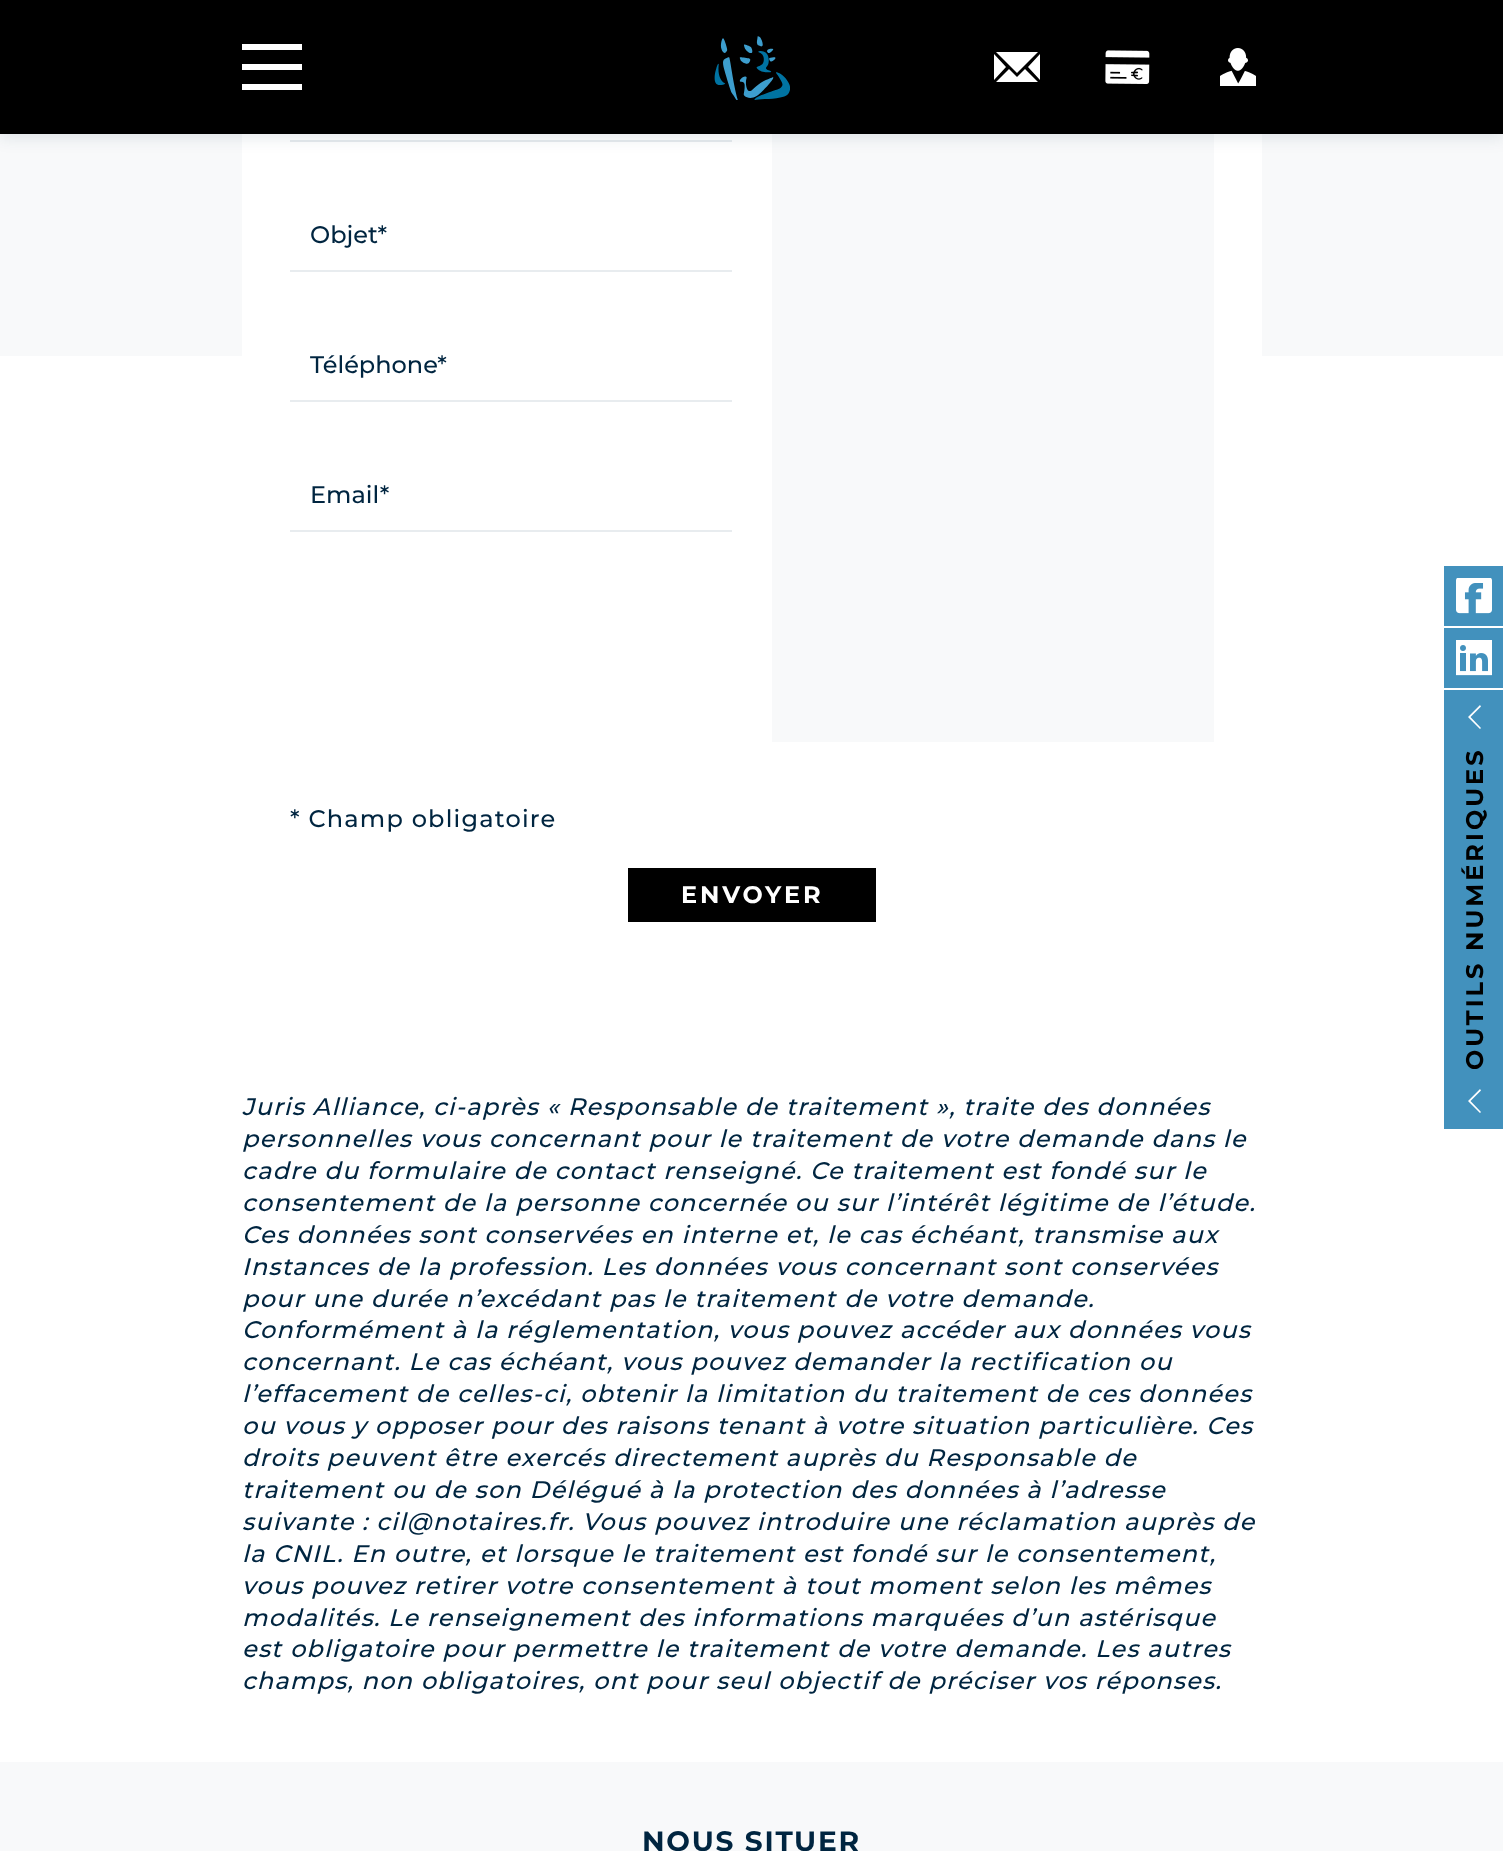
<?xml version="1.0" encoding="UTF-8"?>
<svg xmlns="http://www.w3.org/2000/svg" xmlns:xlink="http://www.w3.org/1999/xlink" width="1503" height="1851">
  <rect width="100%" height="100%" fill="#ffffff" />
  <rect y="134" width="1503" height="222" fill="#f8f9fa" />
  <rect x="242" y="134" width="1020" height="222" fill="#ffffff" />
  <rect x="290" y="140" width="442" height="2" fill="#e8ecef" />
  <rect x="772" y="134" width="442" height="608" fill="#f8f9fa" />
  <rect y="4" width="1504" height="134" fill="#002540" fill-opacity="0.1" filter="blur(8px)" />
  <rect width="1503" height="134" fill="#000000" />
  <rect x="242" y="44" width="60" height="6" fill="#ffffff" />
  <rect x="242" y="64" width="60" height="6" fill="#ffffff" />
  <rect x="242" y="84" width="60" height="6" fill="#ffffff" />
  <image x="714" y="36" width="76" height="64" xlink:href="image1.png" />
  <path d="M 994 54 l 12 13 l -12 13 z m 46 26 l -12 -13 l 12 -13 z m -2 -28 l -21 21 l -21 -21 z" fill="#ffffff" fill-rule="evenodd" />
  <path d="M 996 82 l 13 -13 l 8 8 l 8 -8 l 13 13 z" fill="#ffffff" fill-rule="evenodd" />
  <image x="1105" y="50" width="45" height="34" xlink:href="image2.png" />
  <image x="1220" y="48" width="36" height="38" xlink:href="image3.png" />
  <rect x="290" y="270" width="442" height="2" fill="#e8ecef" />
  <rect x="290" y="400" width="442" height="2" fill="#e8ecef" />
  <rect x="290" y="530" width="442" height="2" fill="#e8ecef" />
  <rect x="628" y="868" width="248" height="54" fill="#000000" />
  <rect y="1762" width="1503" height="89" fill="#f8f9fa" />
  <rect x="1444" y="566" width="59" height="60" fill="#4291bd" />
  <image x="1456" y="578" width="36" height="36" xlink:href="image4.png" />
  <rect x="1444" y="628" width="59" height="60" fill="#4291bd" />
  <image x="1456" y="640" width="36" height="36" xlink:href="image5.png" />
  <rect x="1444" y="690" width="59" height="439" fill="#4291bd" />
  <path d="M 1480 729 l 1 -1 l -10.5 -11 l 10.5 -10.5 l -1 -1.5 l -12 12 z" fill="#ffffff" fill-rule="evenodd" />
  <path d="M 1480 1113 l 1 -1 l -10.5 -11 l 10.5 -10.5 l -1 -1.5 l -12 12 z" fill="#ffffff" fill-rule="evenodd" />
  <text x="310" y="243" style="font-family: Montserrat; font-size: 24px; font-weight: 500; fill: #002540">Objet*</text>
  <text x="310" y="373" style="font-family: Montserrat; font-size: 24px; font-weight: 500; fill: #002540">Téléphone*</text>
  <text x="310" y="503" style="font-family: Montserrat; font-size: 24px; font-weight: 500; fill: #002540">Email*</text>
  <text x="290" y="827" style="font-family: Montserrat; font-size: 24px; font-weight: 500; letter-spacing: 1.2px; fill: #002540">* Champ obligatoire</text>
  <text x="681" y="903" style="font-family: Montserrat; font-size: 24px; font-weight: bold; letter-spacing: 3px; fill: #ffffff">ENVOYER</text>
  <text x="242" y="1115" style="font-family: Montserrat; font-size: 24px; font-weight: 500; font-style: italic; letter-spacing: 1.2px; fill: #002540">Juris Alliance, ci-après « Responsable de traitement », traite des données</text>
  <text x="242" y="1147" style="font-family: Montserrat; font-size: 24px; font-weight: 500; font-style: italic; letter-spacing: 1.2px; fill: #002540">personnelles vous concernant pour le traitement de votre demande dans le</text>
  <text x="242" y="1179" style="font-family: Montserrat; font-size: 24px; font-weight: 500; font-style: italic; letter-spacing: 1.2px; fill: #002540">cadre du formulaire de contact renseigné. Ce traitement est fondé sur le</text>
  <text x="242" y="1211" style="font-family: Montserrat; font-size: 24px; font-weight: 500; font-style: italic; letter-spacing: 1.2px; fill: #002540">consentement de la personne concernée ou sur l’intérêt légitime de l’étude.</text>
  <text x="242" y="1243" style="font-family: Montserrat; font-size: 24px; font-weight: 500; font-style: italic; letter-spacing: 1.2px; fill: #002540">Ces données sont conservées en interne et, le cas échéant, transmise aux</text>
  <text x="242" y="1275" style="font-family: Montserrat; font-size: 24px; font-weight: 500; font-style: italic; letter-spacing: 1.2px; fill: #002540">Instances de la profession. Les données vous concernant sont conservées</text>
  <text x="242" y="1307" style="font-family: Montserrat; font-size: 24px; font-weight: 500; font-style: italic; letter-spacing: 1.2px; fill: #002540">pour une durée n’excédant pas le traitement de votre demande.</text>
  <text x="242" y="1338" style="font-family: Montserrat; font-size: 24px; font-weight: 500; font-style: italic; letter-spacing: 1.2px; fill: #002540">Conformément à la réglementation, vous pouvez accéder aux données vous</text>
  <text x="242" y="1370" style="font-family: Montserrat; font-size: 24px; font-weight: 500; font-style: italic; letter-spacing: 1.2px; fill: #002540">concernant. Le cas échéant, vous pouvez demander la rectification ou</text>
  <text x="242" y="1402" style="font-family: Montserrat; font-size: 24px; font-weight: 500; font-style: italic; letter-spacing: 1.2px; fill: #002540">l’effacement de celles-ci, obtenir la limitation du traitement de ces données</text>
  <text x="242" y="1434" style="font-family: Montserrat; font-size: 24px; font-weight: 500; font-style: italic; letter-spacing: 1.2px; fill: #002540">ou vous y opposer pour des raisons tenant à votre situation particulière. Ces</text>
  <text x="242" y="1466" style="font-family: Montserrat; font-size: 24px; font-weight: 500; font-style: italic; letter-spacing: 1.2px; fill: #002540">droits peuvent être exercés directement auprès du Responsable de</text>
  <text x="242" y="1498" style="font-family: Montserrat; font-size: 24px; font-weight: 500; font-style: italic; letter-spacing: 1.2px; fill: #002540">traitement ou de son Délégué à la protection des données à l’adresse</text>
  <text x="242" y="1530" style="font-family: Montserrat; font-size: 24px; font-weight: 500; font-style: italic; letter-spacing: 1.2px; fill: #002540">suivante : cil@notaires.fr. Vous pouvez introduire une réclamation auprès de</text>
  <text x="242" y="1562" style="font-family: Montserrat; font-size: 24px; font-weight: 500; font-style: italic; letter-spacing: 1.2px; fill: #002540">la CNIL. En outre, et lorsque le traitement est fondé sur le consentement,</text>
  <text x="242" y="1594" style="font-family: Montserrat; font-size: 24px; font-weight: 500; font-style: italic; letter-spacing: 1.2px; fill: #002540">vous pouvez retirer votre consentement à tout moment selon les mêmes</text>
  <text x="242" y="1626" style="font-family: Montserrat; font-size: 24px; font-weight: 500; font-style: italic; letter-spacing: 1.2px; fill: #002540">modalités. Le renseignement des informations marquées d’un astérisque</text>
  <text x="242" y="1657" style="font-family: Montserrat; font-size: 24px; font-weight: 500; font-style: italic; letter-spacing: 1.2px; fill: #002540">est obligatoire pour permettre le traitement de votre demande. Les autres</text>
  <text x="242" y="1689" style="font-family: Montserrat; font-size: 24px; font-weight: 500; font-style: italic; letter-spacing: 1.2px; fill: #002540">champs, non obligatoires, ont pour seul objectif de préciser vos réponses.</text>
  <text x="642" y="1851" style="font-family: Montserrat; font-size: 28px; font-weight: bold; letter-spacing: 1.75px; fill: #002540">NOUS SITUER</text>
  <text x="1483" y="1070" transform="rotate(-90 1483 1070)" style="font-family: Montserrat; font-size: 24px; font-weight: bold; letter-spacing: 3px; fill: #000000">OUTILS NUMÉRIQUES</text>
</svg>
